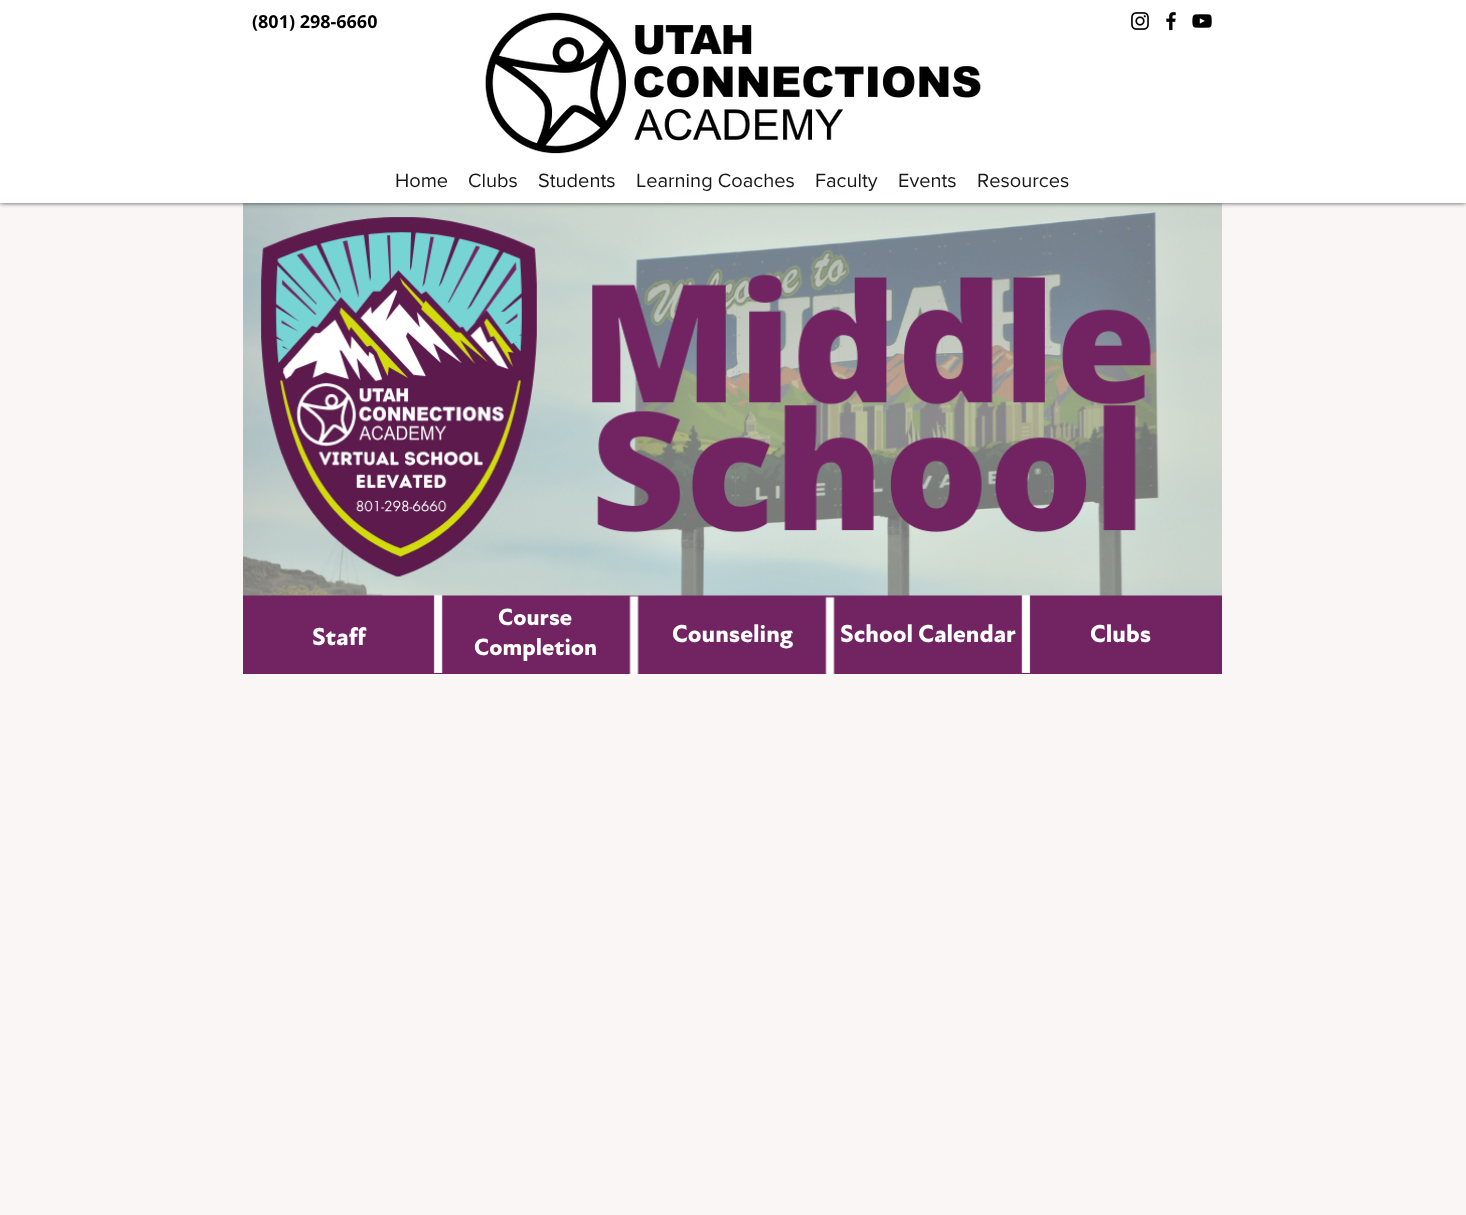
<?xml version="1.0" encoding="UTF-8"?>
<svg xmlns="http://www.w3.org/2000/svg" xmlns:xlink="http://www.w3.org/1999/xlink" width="1466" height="1215">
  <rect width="100%" height="100%" fill="#faf6f6" />
  <image x="243" y="203" width="979" height="471" xlink:href="image5.png" />
  <rect width="1466" height="203" fill="#000000" fill-opacity="0.7" filter="blur(2.5px)" />
  <rect width="1466" height="203" fill="#ffffff" />
  <image x="485" y="12" width="496" height="142" xlink:href="image1.png" />
  <image x="1131" y="12" width="18" height="18" xlink:href="image2.png" />
  <image x="1166" y="11" width="10" height="20" xlink:href="image3.png" />
  <image x="1192" y="14" width="20" height="14" xlink:href="image4.png" />
  <text x="252" y="28" style="font-family: Open Sans; font-size: 18px; font-weight: bold; fill: #000000">(801) 298-6660</text>
  <text x="395" y="187" style="font-family: 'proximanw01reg'; font-size: 20px; fill: #181818">Home</text>
  <text x="468" y="187" style="font-family: 'proximanw01reg'; font-size: 20px; fill: #181818">Clubs</text>
  <text x="538" y="187" style="font-family: 'proximanw01reg'; font-size: 20px; fill: #181818">Students</text>
  <text x="636" y="187" style="font-family: 'proximanw01reg'; font-size: 20px; fill: #181818">Learning Coaches</text>
  <text x="815" y="187" style="font-family: 'proximanw01reg'; font-size: 20px; fill: #181818">Faculty</text>
  <text x="898" y="187" style="font-family: 'proximanw01reg'; font-size: 20px; fill: #181818">Events</text>
  <text x="977" y="187" style="font-family: 'proximanw01reg'; font-size: 20px; fill: #181818">Resources</text>
  <text x="312" y="645" style="font-family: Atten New; font-size: 25px; font-weight: 800; fill: #ffffff">Staff</text>
  <text x="498" y="625" style="font-family: Atten New; font-size: 24px; font-weight: 800; fill: #ffffff">Course</text>
  <text x="474" y="655" style="font-family: Atten New; font-size: 24px; font-weight: 800; fill: #ffffff">Completion</text>
  <text x="672" y="642" style="font-family: Atten New; font-size: 25px; font-weight: 800; fill: #ffffff">Counseling</text>
  <text x="840" y="642" style="font-family: Atten New; font-size: 25px; font-weight: 800; fill: #ffffff">School Calendar</text>
  <text x="1090" y="642" style="font-family: Atten New; font-size: 25px; font-weight: 800; fill: #ffffff">Clubs</text>
</svg>
